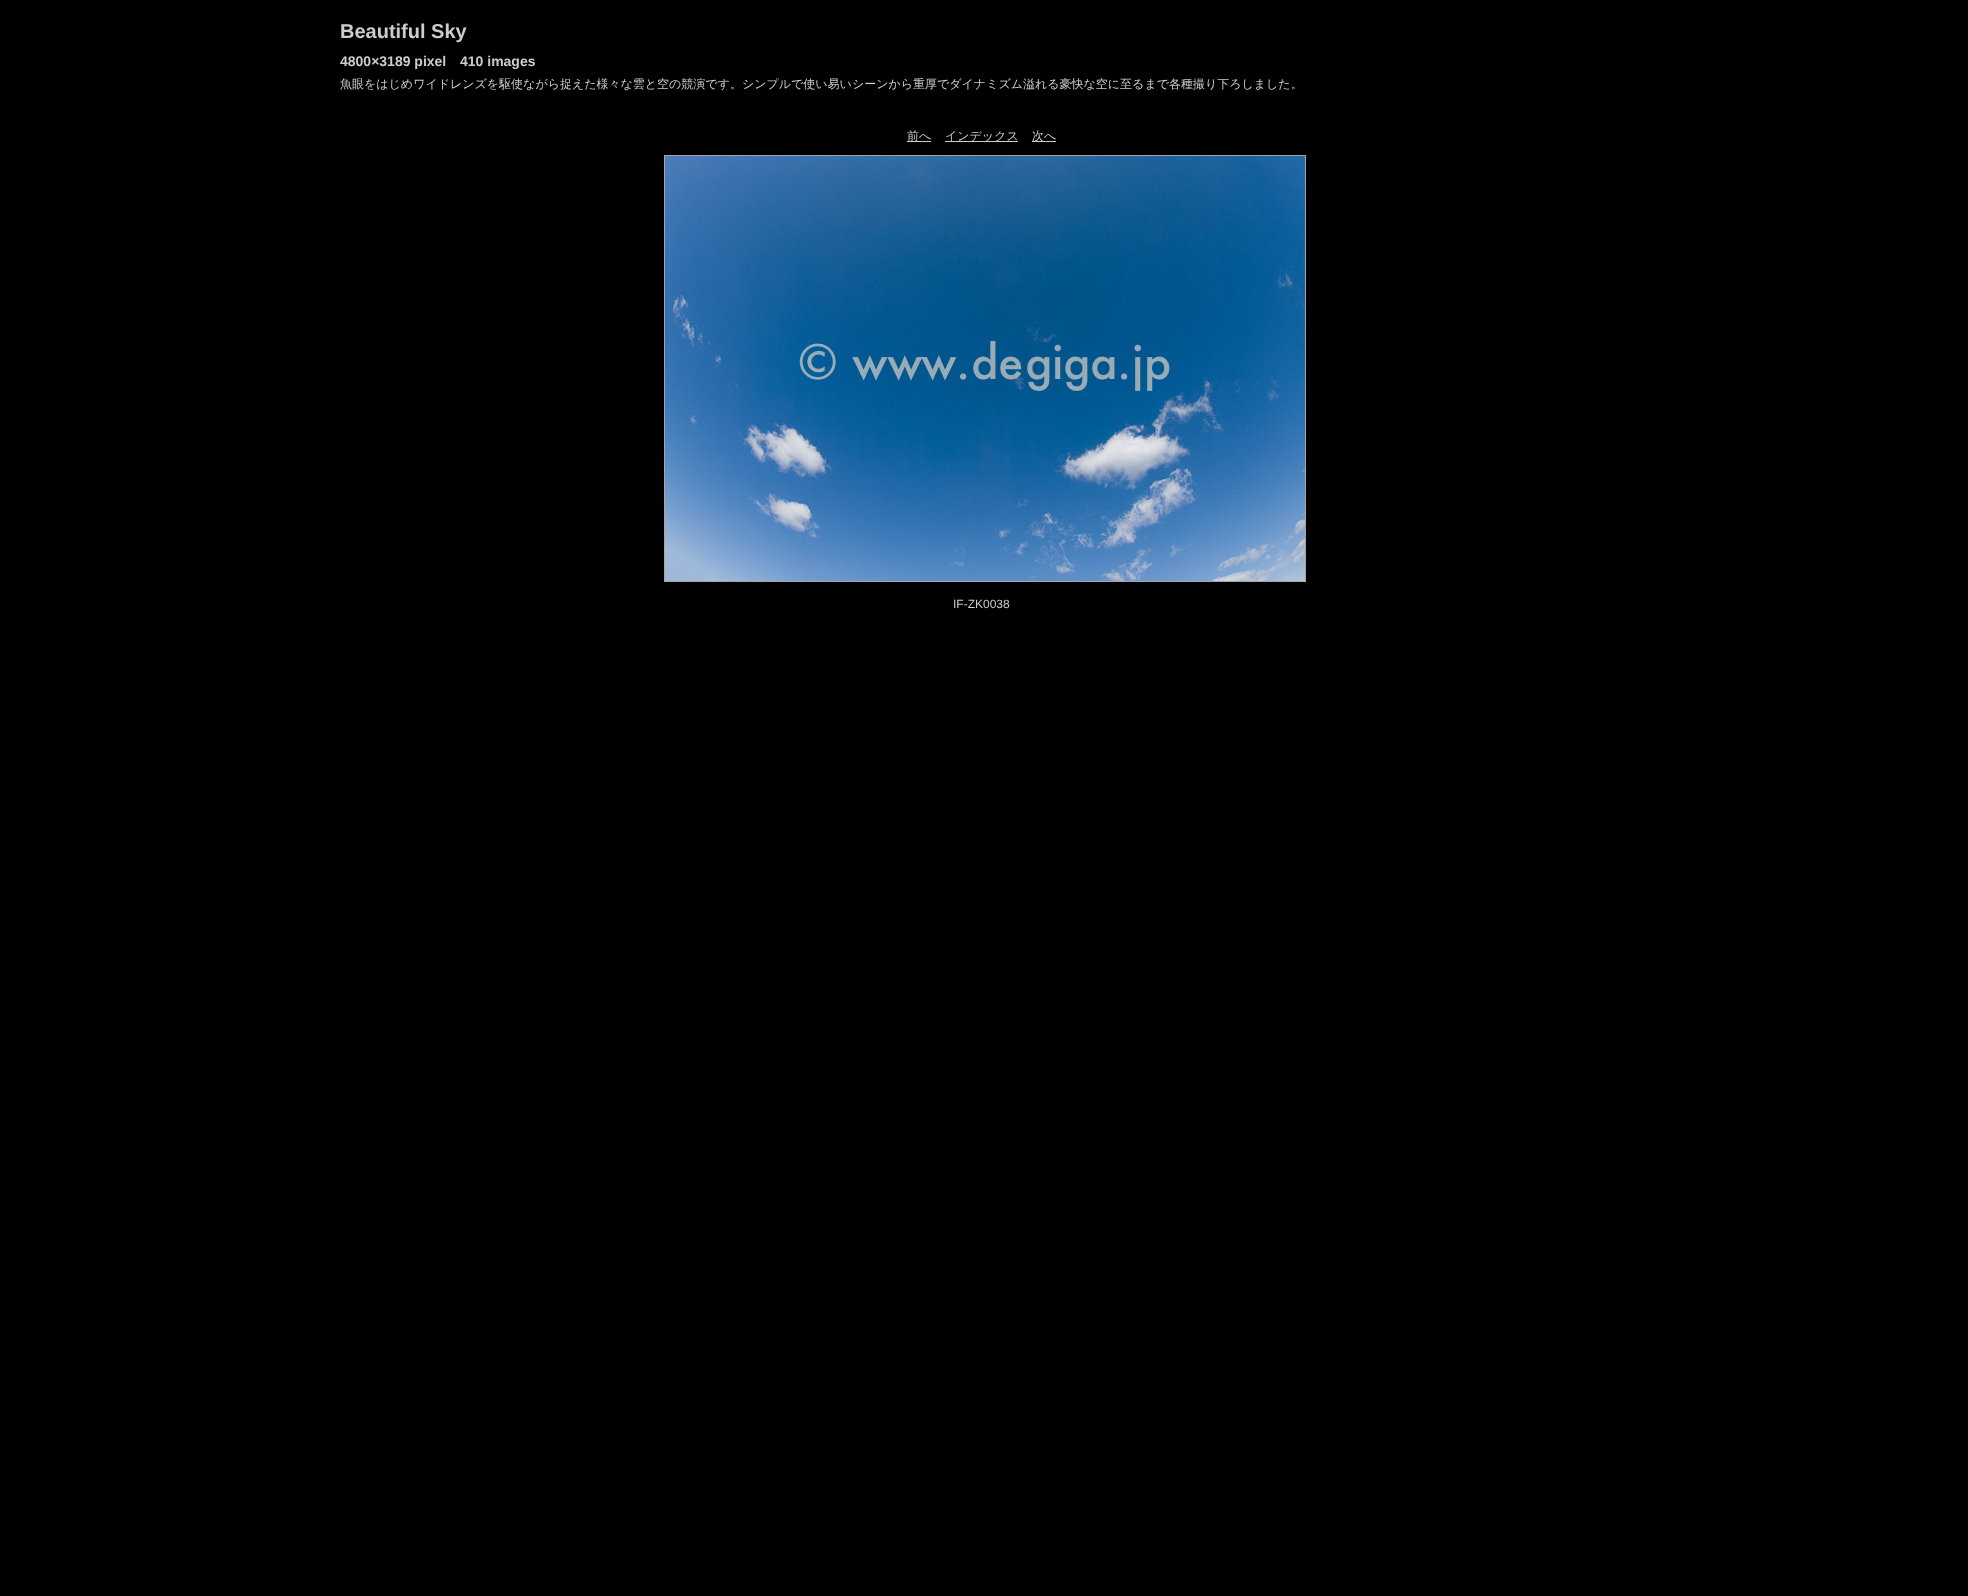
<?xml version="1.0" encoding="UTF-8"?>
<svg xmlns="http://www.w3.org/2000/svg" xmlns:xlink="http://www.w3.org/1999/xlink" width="1968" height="1596">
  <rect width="100%" height="100%" fill="#000000" />
  <rect x="907" y="141" width="24" height="1" fill="#cccccc" />
  <rect x="945" y="141" width="73" height="1" fill="#cccccc" />
  <rect x="1032" y="141" width="24" height="1" fill="#cccccc" />
  <rect x="664.5" y="155.5" width="641" height="426" fill="none" stroke="#a6a6a6" />
  <image x="665" y="156" width="640" height="425" xlink:href="image1.png" />
  <text x="340" y="38" style="font-family: Liberation Sans; font-size: 20px; font-weight: bold; fill: #cccccc">Beautiful Sky</text>
  <text x="340" y="66" style="font-family: Liberation Sans; font-size: 14px; font-weight: bold; fill: #cccccc">4800×3189 pixel</text>
  <text x="460" y="66" style="font-family: Liberation Sans; font-size: 14px; font-weight: bold; fill: #cccccc">410 images</text>
  <text x="340" y="88" style="font-family: WenQuanYi Zen Hei; font-size: 12px; font-weight: 500; fill: #cccccc">魚眼をはじめワイドレンズを駆使ながら捉えた様々な雲と空の競演です。シンプルで使い易いシーンから重厚でダイナミズム溢れる豪快な空に至るまで各種撮り下ろしました。</text>
  <text x="907" y="140" style="font-family: WenQuanYi Zen Hei; font-size: 12px; font-weight: 500; fill: #cccccc">前へ</text>
  <text x="945" y="140" style="font-family: WenQuanYi Zen Hei; font-size: 12px; font-weight: 500; fill: #cccccc">インデックス</text>
  <text x="1032" y="140" style="font-family: WenQuanYi Zen Hei; font-size: 12px; font-weight: 500; fill: #cccccc">次へ</text>
  <text x="953" y="608" style="font-family: Liberation Sans; font-size: 12px; fill: #cccccc">IF-ZK0038</text>
</svg>
